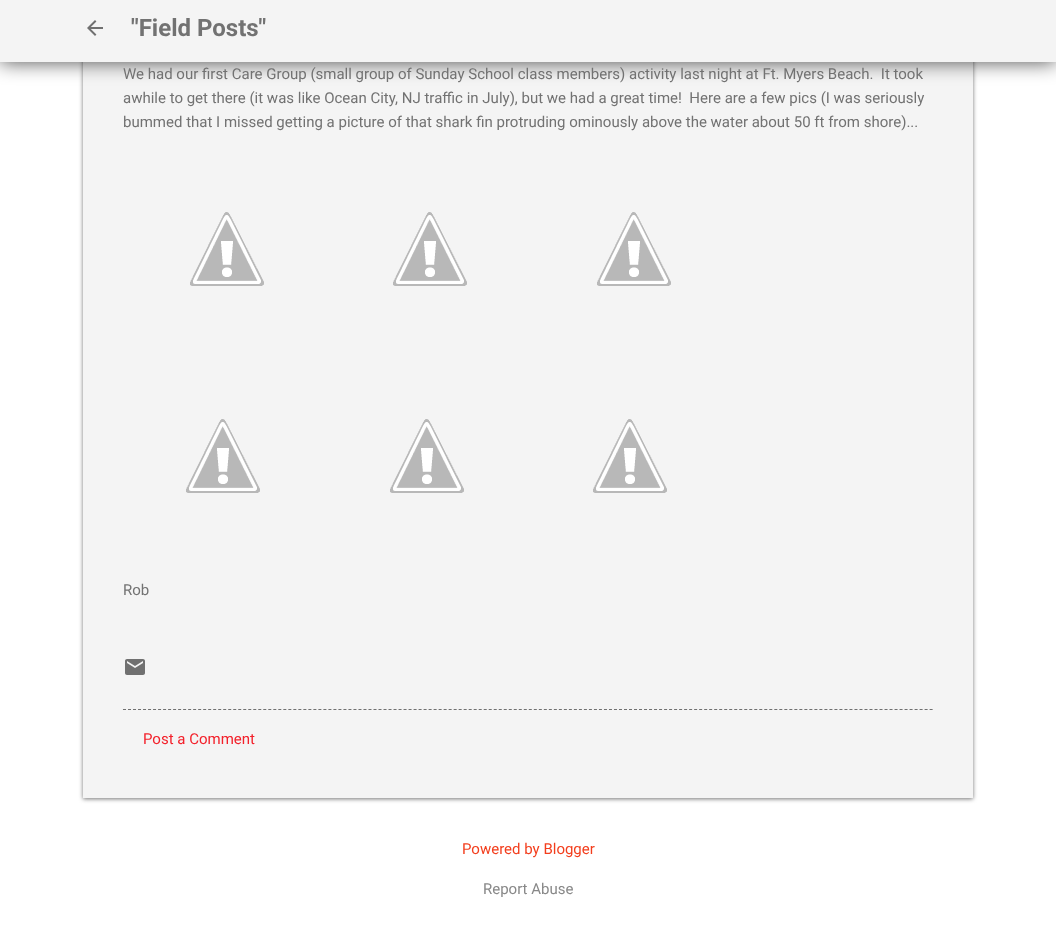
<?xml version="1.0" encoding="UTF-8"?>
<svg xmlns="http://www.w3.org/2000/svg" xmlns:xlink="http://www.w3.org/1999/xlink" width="1056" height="933">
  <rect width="100%" height="100%" fill="#ffffff" />
  <rect x="83" y="-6" width="890" height="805" fill="#757575" filter="blur(2px)" />
  <rect x="83" y="62" width="890" height="736" fill="#f4f4f4" />
  <rect width="1056" height="62" fill="#000000" fill-opacity="0.7" filter="blur(10px)" />
  <rect width="1056" height="62" fill="#f4f4f4" />
  <image x="87" y="20" width="16" height="16" xlink:href="image1.png" />
  <image x="190" y="212" width="74" height="74" xlink:href="image2.png" />
  <image x="393" y="212" width="74" height="74" xlink:href="image2.png" />
  <image x="597" y="212" width="74" height="74" xlink:href="image2.png" />
  <image x="186" y="419" width="74" height="74" xlink:href="image2.png" />
  <image x="390" y="419" width="74" height="74" xlink:href="image2.png" />
  <image x="593" y="419" width="74" height="74" xlink:href="image2.png" />
  <image x="125" y="659" width="20" height="16" xlink:href="image3.png" />
  <path d="M 123 709.5 h 810" fill="none" stroke="#707070" stroke-dasharray="3 2.01" />
  <text x="131" y="36" style="font-family: Roboto; font-size: 24px; font-weight: bold; fill: #727272">"Field Posts"</text>
  <text x="123" y="79" style="font-family: Roboto; font-size: 15px; fill: #727272" xml:space="preserve">We had our first Care Group (small group of Sunday School class members) activity last night at Ft. Myers Beach.  It took</text>
  <text x="123" y="103" style="font-family: Roboto; font-size: 15px; fill: #727272" xml:space="preserve">awhile to get there (it was like Ocean City, NJ traffic in July), but we had a great time!  Here are a few pics (I was seriously</text>
  <text x="123" y="127" style="font-family: Roboto; font-size: 15px; fill: #727272">bummed that I missed getting a picture of that shark fin protruding ominously above the water about 50 ft from shore)...</text>
  <text x="123" y="595" style="font-family: Roboto; font-size: 15px; fill: #727272">Rob</text>
  <text x="143" y="744" style="font-family: Roboto; font-size: 15px; fill: #f3212b">Post a Comment</text>
  <text x="462" y="854" style="font-family: Roboto; font-size: 15px; fill: #f33e1d">Powered by Blogger</text>
  <text x="483" y="894" style="font-family: Roboto; font-size: 15px; fill: #888888">Report Abuse</text>
</svg>
